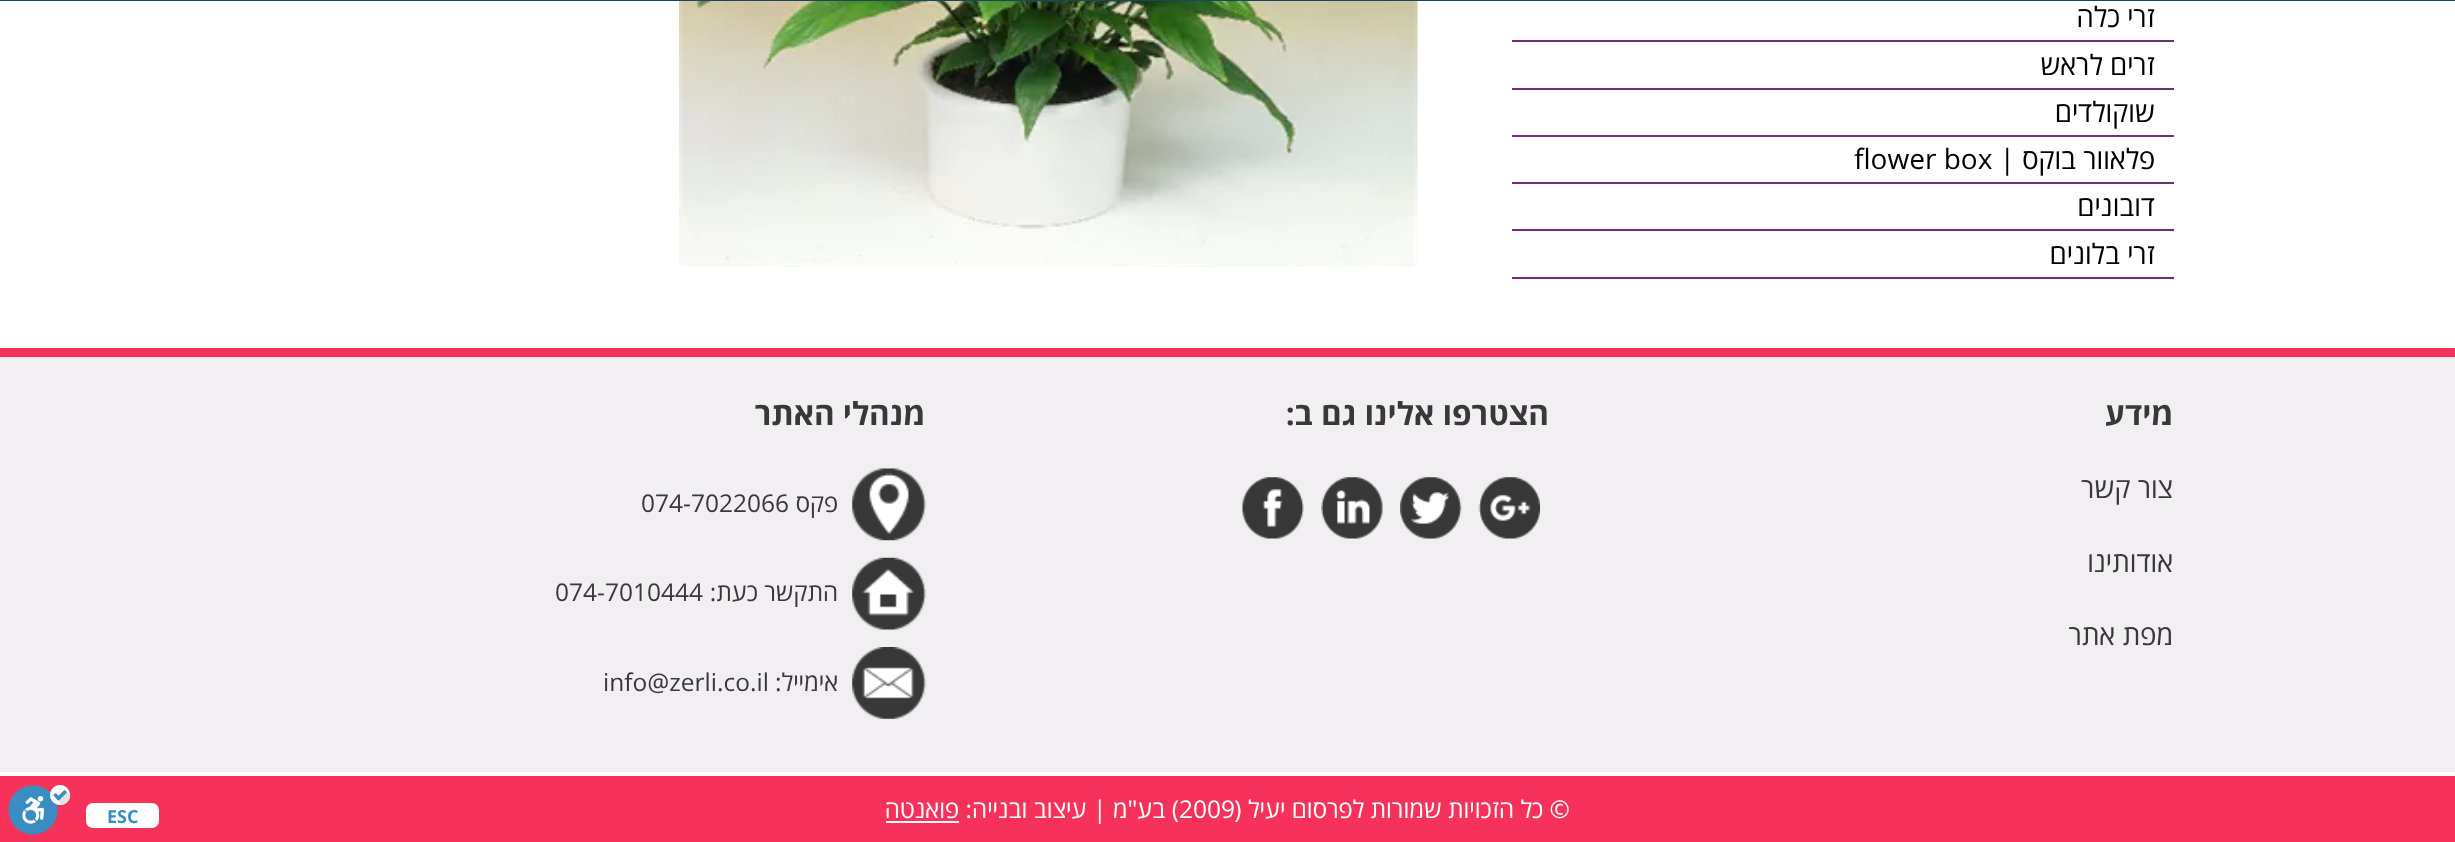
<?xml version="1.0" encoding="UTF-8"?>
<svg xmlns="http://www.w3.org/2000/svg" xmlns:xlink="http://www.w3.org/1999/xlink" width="2455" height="842">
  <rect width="100%" height="100%" fill="#ffffff" />
  <rect x="1512" y="40" width="662" height="2" fill="#6e2d75" />
  <rect x="1512" y="88" width="662" height="2" fill="#6e2d75" />
  <rect x="1512" y="135" width="662" height="2" fill="#6e2d75" />
  <rect x="1512" y="182" width="662" height="2" fill="#6e2d75" />
  <rect x="1512" y="229" width="662" height="2" fill="#6e2d75" />
  <rect x="1512" y="277" width="662" height="2" fill="#6e2d75" />
  <image x="679" y="1" width="739" height="266" xlink:href="image1.png" />
  <rect y="357" width="2455" height="415" fill="#f1eff2" />
  <rect y="348" width="2455" height="9" fill="#f6325a" />
  <image x="1478" y="477" width="62" height="62" xlink:href="image2.png" />
  <image x="1400" y="477" width="62" height="62" xlink:href="image3.png" />
  <image x="1321" y="477" width="62" height="62" xlink:href="image4.png" />
  <image x="1242" y="477" width="62" height="62" xlink:href="image5.png" />
  <image x="852" y="468" width="74" height="73" xlink:href="image6.png" />
  <image x="852" y="557" width="74" height="73" xlink:href="image7.png" />
  <image x="852" y="647" width="74" height="72" xlink:href="image8.png" />
  <rect y="776" width="2455" height="66" fill="#f6325a" />
  <rect x="886" y="821" width="73" height="2" fill="#ffffff" />
  <rect width="2455" height="1" fill="#15495f" />
  <rect x="86" y="803" width="73" height="25" rx="7" fill="#ffffff" />
  <image x="8" y="785" width="63" height="50" xlink:href="image9.png" />
  <text x="2155" y="27" style="font-family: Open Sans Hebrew; font-size: 28px; direction: rtl; fill: #000000">זרי כלה</text>
  <text x="2155" y="75" style="font-family: Open Sans Hebrew; font-size: 28px; direction: rtl; fill: #000000">זרים לראש</text>
  <text x="2155" y="122" style="font-family: Open Sans Hebrew; font-size: 28px; direction: rtl; fill: #000000">שוקולדים</text>
  <text x="2155" y="169" style="font-family: Open Sans Hebrew; font-size: 28px; direction: rtl; fill: #000000">פלאוור בוקס |</text>
  <text x="1854" y="169" style="font-family: Open Sans Hebrew; font-size: 28px; fill: #000000">flower box</text>
  <text x="2155" y="216" style="font-family: Open Sans Hebrew; font-size: 28px; direction: rtl; fill: #000000">דובונים</text>
  <text x="2155" y="264" style="font-family: Open Sans Hebrew; font-size: 28px; direction: rtl; fill: #000000">זרי בלונים</text>
  <text x="2173" y="425" style="font-family: Open Sans Hebrew; font-size: 31.5px; font-weight: bold; direction: rtl; fill: #383838">מידע</text>
  <text x="2173" y="498" style="font-family: Open Sans Hebrew; font-size: 28px; direction: rtl; fill: #383838">צור קשר</text>
  <text x="2173" y="572" style="font-family: Open Sans Hebrew; font-size: 28px; direction: rtl; fill: #383838">אודותינו</text>
  <text x="2173" y="645" style="font-family: Open Sans Hebrew; font-size: 28px; direction: rtl; fill: #383838">מפת אתר</text>
  <text x="1549" y="425" style="font-family: Open Sans Hebrew; font-size: 31.5px; font-weight: bold; direction: rtl; fill: #383838">הצטרפו אלינו גם ב:</text>
  <text x="925" y="425" style="font-family: Open Sans Hebrew; font-size: 31.5px; font-weight: bold; direction: rtl; fill: #383838">מנהלי האתר</text>
  <text x="838" y="512" style="font-family: Open Sans Hebrew; font-size: 24.5px; direction: rtl; fill: #383838">פקס</text>
  <text x="641" y="512" style="font-family: Open Sans Hebrew; font-size: 24.5px; fill: #383838">074-7022066</text>
  <text x="838" y="601" style="font-family: Open Sans Hebrew; font-size: 24.5px; direction: rtl; fill: #383838">התקשר כעת:</text>
  <text x="555" y="601" style="font-family: Open Sans Hebrew; font-size: 24.5px; fill: #383838">074-7010444</text>
  <text x="838" y="691" style="font-family: Open Sans Hebrew; font-size: 24.5px; direction: rtl; fill: #383838">אימייל:</text>
  <text x="603" y="691" style="font-family: Open Sans Hebrew; font-size: 24.5px; fill: #383838">info@zerli.co.il</text>
  <text x="1570" y="818" style="font-family: Open Sans Hebrew; font-size: 24.5px; direction: rtl; fill: #ffffff">© כל הזכויות שמורות לפרסום יעיל (</text>
  <text x="1179" y="818" style="font-family: Open Sans Hebrew; font-size: 24.5px; fill: #ffffff">2009</text>
  <text x="1179" y="818" style="font-family: Open Sans Hebrew; font-size: 24.5px; direction: rtl; fill: #ffffff">) בע"מ | עיצוב ובנייה:</text>
  <text x="959" y="818" style="font-family: Open Sans Hebrew; font-size: 24.5px; direction: rtl; fill: #ffffff">פואנטה</text>
  <text x="107" y="823" style="font-family: Open Sans Hebrew; font-size: 18px; font-weight: bold; fill: #3a8dc2">ESC</text>
</svg>
